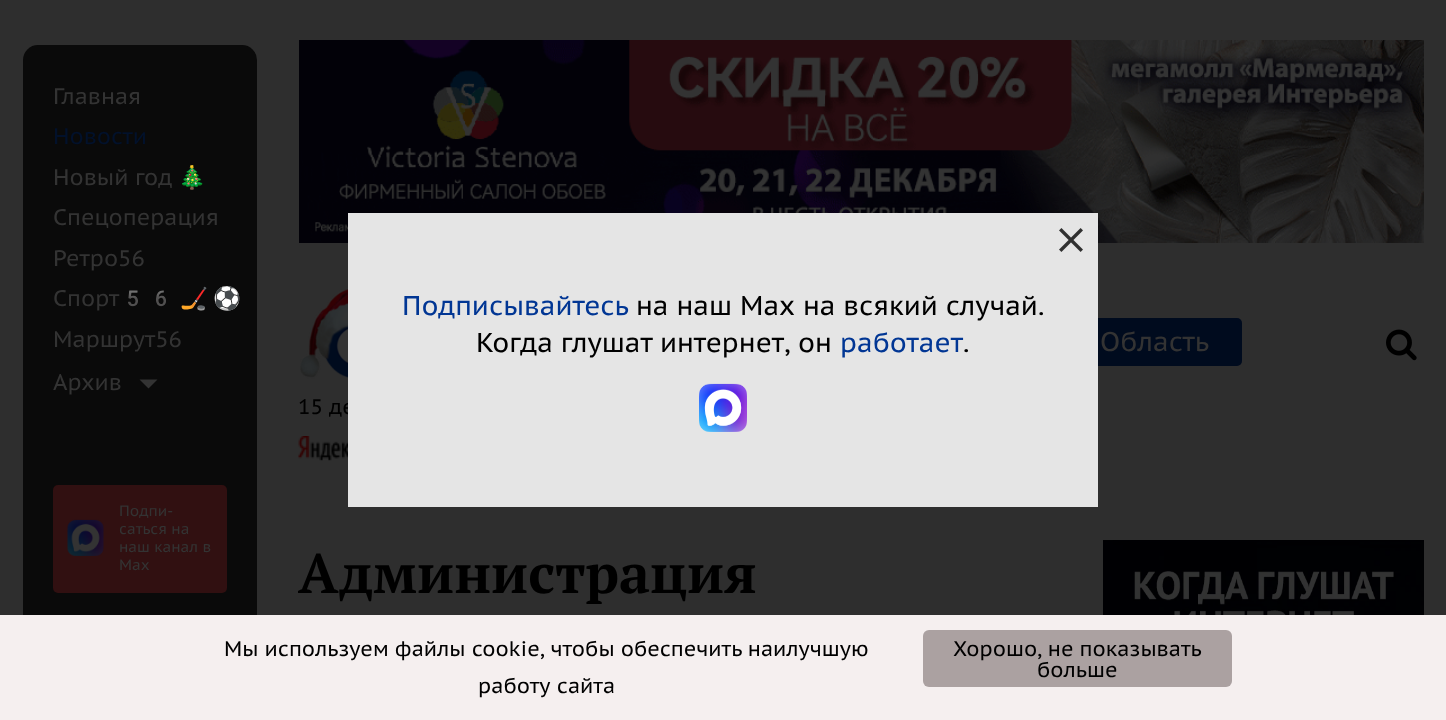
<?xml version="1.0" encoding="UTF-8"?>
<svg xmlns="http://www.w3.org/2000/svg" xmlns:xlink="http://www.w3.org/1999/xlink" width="1446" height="720">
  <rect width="100%" height="100%" fill="#2e2e2e" />
  <rect x="23" y="45" width="234" height="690" rx="15" fill="#0a0a0a" />
  <path d="M 139.5 379.5 h 18 l -9 9 z" fill="#333333" />
  <rect x="53" y="485" width="174" height="108" rx="5" fill="#311011" />
  <image x="67" y="519" width="37" height="37" xlink:href="image1.png" />
  <image x="299" y="40" width="1125" height="203" xlink:href="image2.png" />
  <image x="300" y="288" width="48" height="91" xlink:href="image3.png" />
  <rect x="1070" y="318" width="172" height="48" rx="5" fill="#000b1e" />
  <image x="1386" y="329" width="31" height="32" xlink:href="image4.png" />
  <image x="298" y="436" width="50" height="25" xlink:href="image5.png" />
  <image x="1103" y="540" width="321" height="75" xlink:href="image6.png" />
  <rect y="615" width="1446" height="105" fill="#f5efef" />
  <rect x="923" y="630" width="309" height="57" rx="6" fill="#aba1a1" />
  <text x="53" y="104" style="font-family: PT Sans Caption; font-size: 22.5px; fill: #333333">Главная</text>
  <text x="53" y="144" style="font-family: PT Sans Caption; font-size: 22.5px; fill: #02112b">Новости</text>
  <text x="53" y="185" style="font-family: PT Sans Caption; font-size: 22.5px; fill: #333333">Новый год</text>
  <text x="178" y="185" style="font-family: Noto Color Emoji; font-size: 22.5px; fill: #333333">🎄</text>
  <text x="53" y="225" style="font-family: PT Sans Caption; font-size: 22.5px; fill: #333333">Спецоперация</text>
  <text x="53" y="266" style="font-family: PT Sans Caption; font-size: 22.5px; fill: #333333">Ретро56</text>
  <text x="53" y="306" style="font-family: PT Sans Caption; font-size: 22.5px; fill: #333333">Спорт</text>
  <text x="119" y="306" style="font-family: Noto Color Emoji; font-size: 22.5px; fill: #333333">56</text>
  <text x="180" y="306" style="font-family: Noto Color Emoji; font-size: 22.5px; fill: #333333">🏒</text>
  <text x="213" y="306" style="font-family: Noto Color Emoji; font-size: 22.5px; fill: #333333">⚽</text>
  <text x="53" y="347" style="font-family: PT Sans Caption; font-size: 22.5px; fill: #333333">Маршрут56</text>
  <text x="53" y="390" style="font-family: PT Sans Caption; font-size: 22.5px; fill: #333333">Архив</text>
  <text x="119" y="516" style="font-family: PT Sans Caption; font-size: 15px; fill: #333333">Подпи-</text>
  <text x="119" y="534" style="font-family: PT Sans Caption; font-size: 15px; fill: #333333">саться на</text>
  <text x="119" y="552" style="font-family: PT Sans Caption; font-size: 15px; fill: #333333">наш канал в</text>
  <text x="119" y="570" style="font-family: PT Sans Caption; font-size: 15px; fill: #333333">Max</text>
  <text x="1100" y="351" style="font-family: PT Sans Caption; font-size: 27px; fill: #333333">Область</text>
  <text x="298" y="414" style="font-family: PT Sans Caption; font-size: 21px; fill: #000000">15 де</text>
  <text x="298" y="593" style="font-family: PT Serif; font-size: 55.5px; font-weight: bold; fill: #000000">Администрация</text>
  <rect x="348" y="213" width="750" height="294" fill="#e5e5e5" />
  <image x="1059" y="228" width="24" height="24" xlink:href="image7.png" />
  <text x="402" y="315" style="font-family: PT Sans Caption; font-size: 27px; fill: #013694">Подписывайтесь</text>
  <text x="636" y="315" style="font-family: PT Sans Caption; font-size: 27px; fill: #000000">на наш Max на всякий случай.</text>
  <text x="476" y="352" style="font-family: PT Sans Caption; font-size: 27px; fill: #000000">Когда глушат интернет, он</text>
  <text x="840" y="352" style="font-family: PT Sans Caption; font-size: 27px; fill: #013694">работает</text>
  <text x="963" y="352" style="font-family: PT Sans Caption; font-size: 27px; fill: #000000">.</text>
  <image x="699" y="383" width="48" height="49" xlink:href="image8.png" />
  <text x="224" y="656" style="font-family: PT Sans Caption; font-size: 21px; fill: #000000">Мы используем файлы cookie, чтобы обеспечить наилучшую</text>
  <text x="478" y="693" word-spacing="1" style="font-family: PT Sans Caption; font-size: 21px; fill: #000000">работу сайта</text>
  <text x="953" y="656" style="font-family: PT Sans Caption; font-size: 21px; fill: #000000">Хорошо</text>
  <text x="1037" y="656" style="font-family: PT Sans Caption; font-size: 21px; fill: #000000">, не показывать</text>
  <text x="1037" y="677" style="font-family: PT Sans Caption; font-size: 21px; fill: #000000">больше</text>
</svg>
